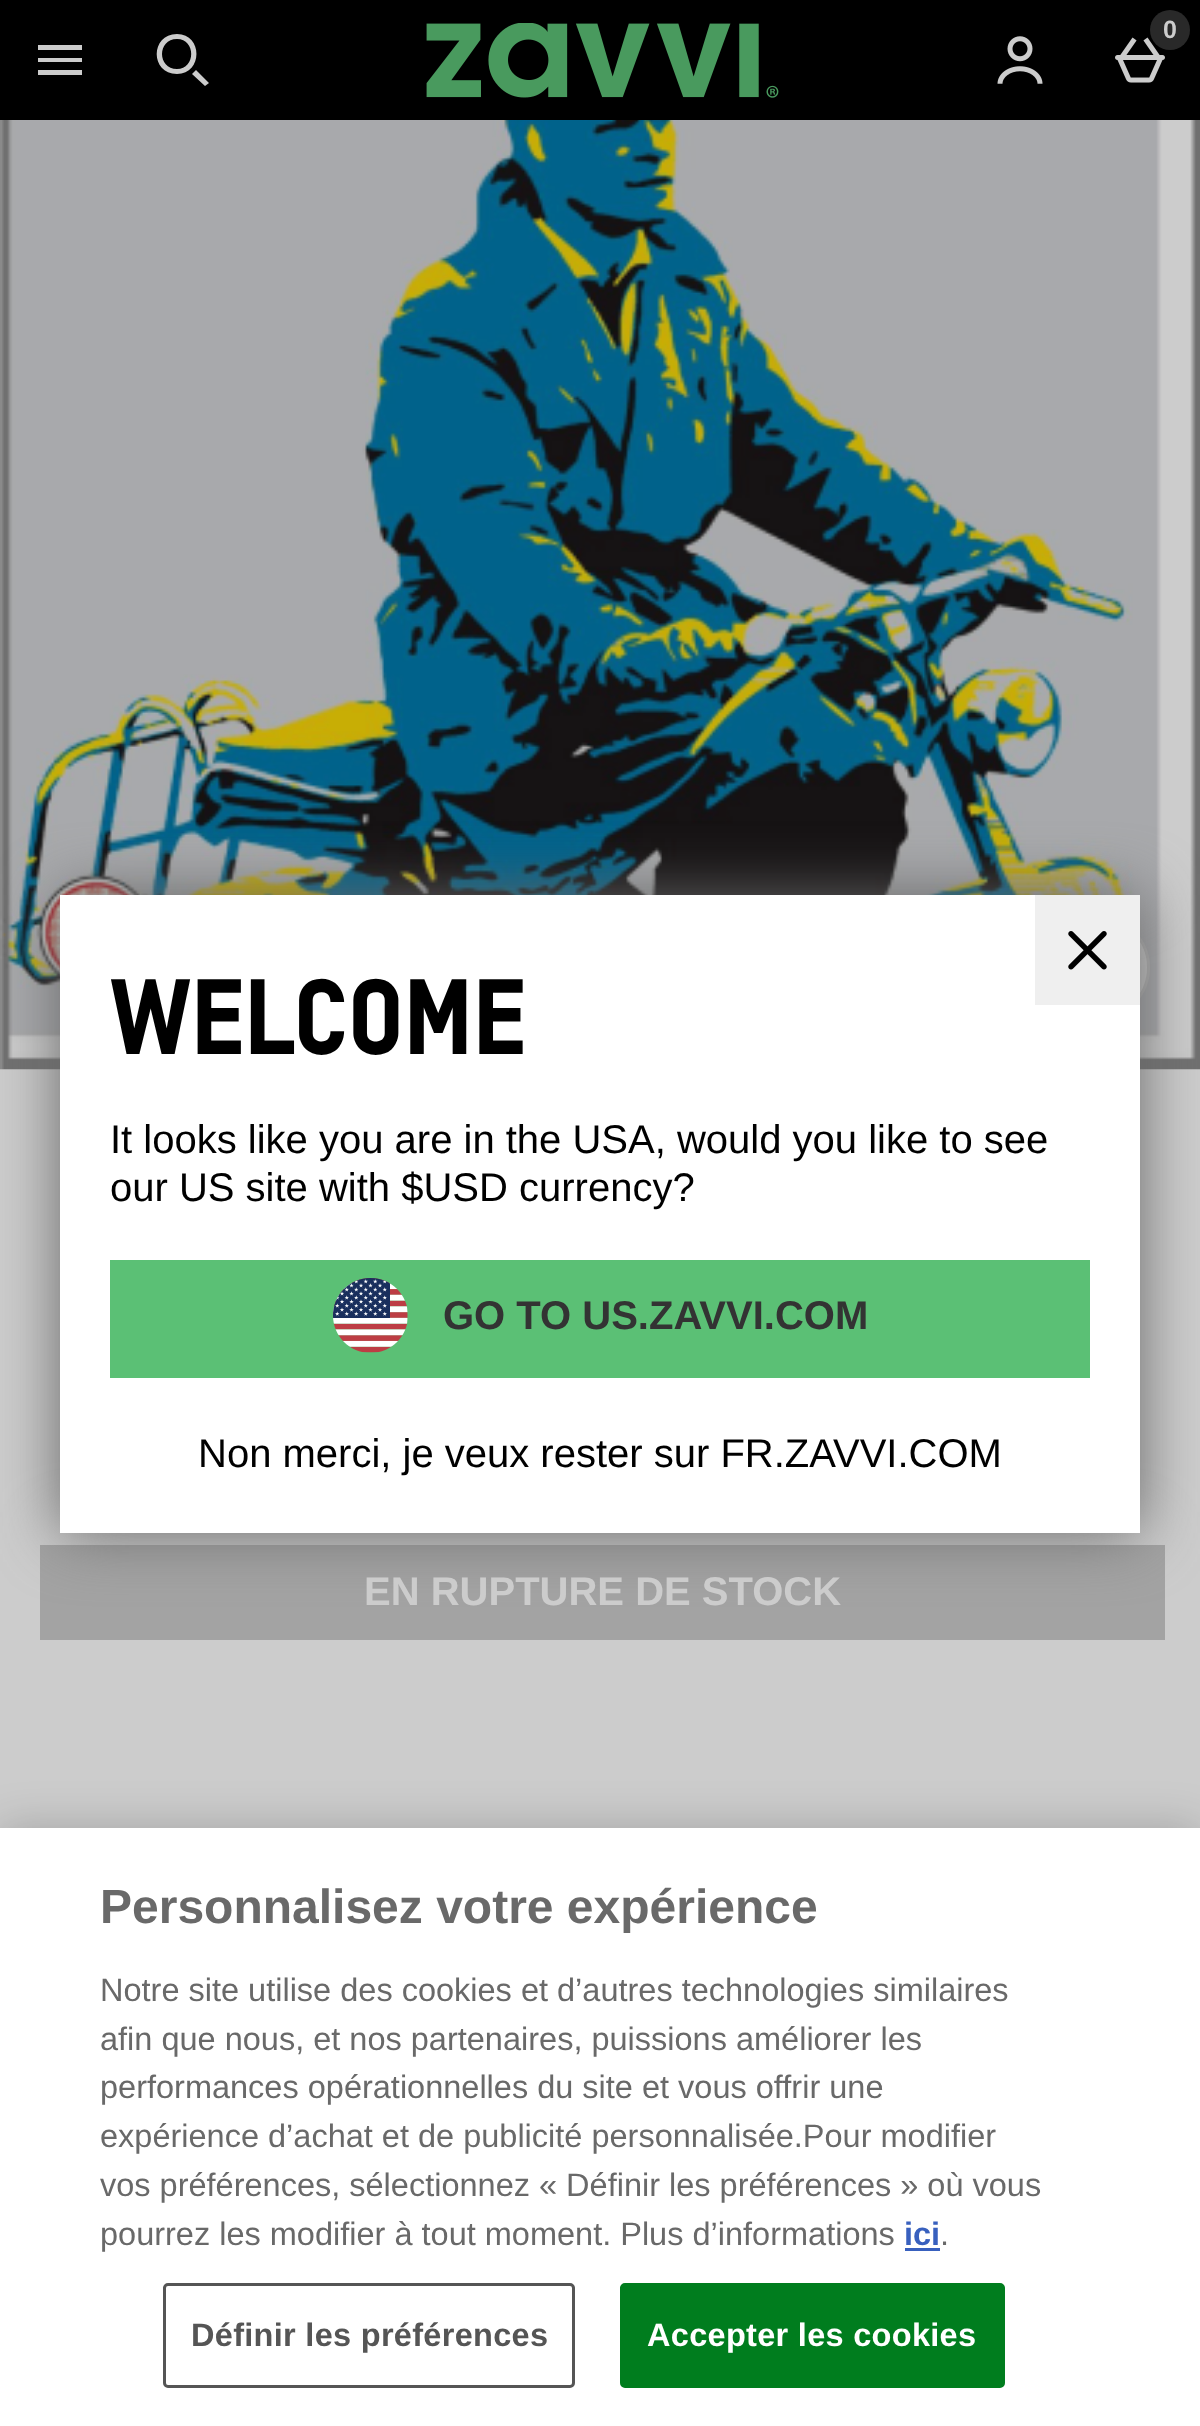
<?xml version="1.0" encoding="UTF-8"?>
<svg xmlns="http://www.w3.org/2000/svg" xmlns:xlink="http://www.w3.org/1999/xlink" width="1200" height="2426">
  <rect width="100%" height="100%" fill="#cccccc" />
  <rect width="1200" height="120" fill="#000000" />
  <path d="M 38 58 h 44 v 4 h -44 z m 0 -13 h 44 v 5 h -44 z m 0 25 h 44 v 5 h -44 z" fill="#cccccc" />
  <path d="M 177 69 c 19 0 19 -30 0 -30 c -20 0 -20 30 0 30 z m 0 5 c -27 0 -27 -40 0 -40 c 26 0 26 40 0 40 z m 32 9 l -4 3 l -13 -12 l 4 -4 z" fill="#cccccc" />
  <image x="426" y="23" width="353" height="75" xlink:href="image1.png" />
  <image x="997" y="36" width="46" height="48" xlink:href="image2.png" />
  <image x="1115" y="37" width="50" height="46" xlink:href="image3.png" />
  <circle cx="1170" cy="30" r="20" fill="#292929" />
  <image x="0" y="120" width="1200" height="950" xlink:href="image4.png" />
  <circle cx="1097.5" cy="967.5" r="51" fill="#cccccc" stroke="#b4b4b4" stroke-width="3" />
  <rect x="40" y="1545" width="1125" height="95" fill="#a3a3a3" />
  <rect x="60" y="895" width="1080" height="638" fill="#666666" filter="blur(31px)" />
  <rect x="60" y="895" width="1080" height="638" fill="#ffffff" />
  <rect x="1035" y="895" width="105" height="110" fill="#efefef" />
  <image x="1068" y="931" width="39" height="39" xlink:href="image5.png" />
  <rect x="110" y="1260" width="980" height="118" fill="#5bc075" />
  <image x="333" y="1278" width="75" height="75" xlink:href="image6.png" />
  <rect y="1828" width="1200" height="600" fill="#000000" fill-opacity="0.2" filter="blur(22.5px)" />
  <rect y="1828" width="1200" height="598" fill="#ffffff" />
  <rect x="905" y="2248" width="35" height="3" fill="#3860be" />
  <rect x="164.5" y="2284.5" width="409" height="102" rx="3.5" fill="none" stroke="#555555" stroke-width="3" />
  <rect x="621.5" y="2284.5" width="382" height="102" rx="3.5" fill="#007d1e" stroke="#007d1e" stroke-width="3" />
  <text x="1163" y="38" style="font-family: Liberation Sans; font-size: 25px; font-weight: bold; fill: #cccccc">0</text>
  <text x="364" y="1605" style="font-family: Liberation Sans; font-size: 40px; font-weight: bold; fill: #cccccc">EN RUPTURE DE STOCK</text>
  <text x="110" y="1054" style="font-family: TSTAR; font-size: 105px; font-weight: 900; fill: #000000">WELCOME</text>
  <text x="110" y="1153" style="font-family: Liberation Sans; font-size: 40px; fill: #000000">It looks like you are in the USA, would you like to see</text>
  <text x="110" y="1201" style="font-family: Liberation Sans; font-size: 40px; fill: #000000">our US site with $USD currency?</text>
  <text x="443" y="1329" style="font-family: Liberation Sans; font-size: 40px; font-weight: bold; fill: #333333">GO TO US.ZAVVI.COM</text>
  <text x="198" y="1467" style="font-family: Liberation Sans; font-size: 40px; fill: #000000">Non merci, je veux rester sur FR.ZAVVI.COM</text>
  <text x="100" y="1923" style="font-family: Liberation Sans; font-size: 48px; font-weight: bold; fill: #696969">Personnalisez votre expérience</text>
  <text x="100" y="2001" style="font-family: Liberation Sans; font-size: 32.5px; fill: #696969">Notre site utilise des cookies et d’autres technologies similaires</text>
  <text x="100" y="2050" style="font-family: Liberation Sans; font-size: 32.5px; fill: #696969">afin que nous, et nos partenaires, puissions améliorer les</text>
  <text x="100" y="2098" style="font-family: Liberation Sans; font-size: 32.5px; fill: #696969">performances opérationnelles du site et vous offrir une</text>
  <text x="100" y="2147" style="font-family: Liberation Sans; font-size: 32.5px; fill: #696969">expérience d’achat et de publicité personnalisée.Pour modifier</text>
  <text x="100" y="2196" style="font-family: Liberation Sans; font-size: 32.5px; fill: #696969">vos préférences, sélectionnez « Définir les préférences » où vous</text>
  <text x="100" y="2245" style="font-family: Liberation Sans; font-size: 32.5px; fill: #696969">pourrez les modifier à tout moment. Plus d’informations</text>
  <text x="904" y="2245" style="font-family: Liberation Sans; font-size: 32.5px; font-weight: bold; fill: #3860be">ici</text>
  <text x="940" y="2245" style="font-family: Liberation Sans; font-size: 32.5px; fill: #696969">.</text>
  <text x="191" y="2346" style="font-family: Liberation Sans; font-size: 32.5px; font-weight: bold; letter-spacing: 0.3px; fill: #555555">Définir les préférences</text>
  <text x="647" y="2346" style="font-family: Liberation Sans; font-size: 32.5px; font-weight: bold; letter-spacing: 0.3px; fill: #ffffff">Accepter les cookies</text>
</svg>
